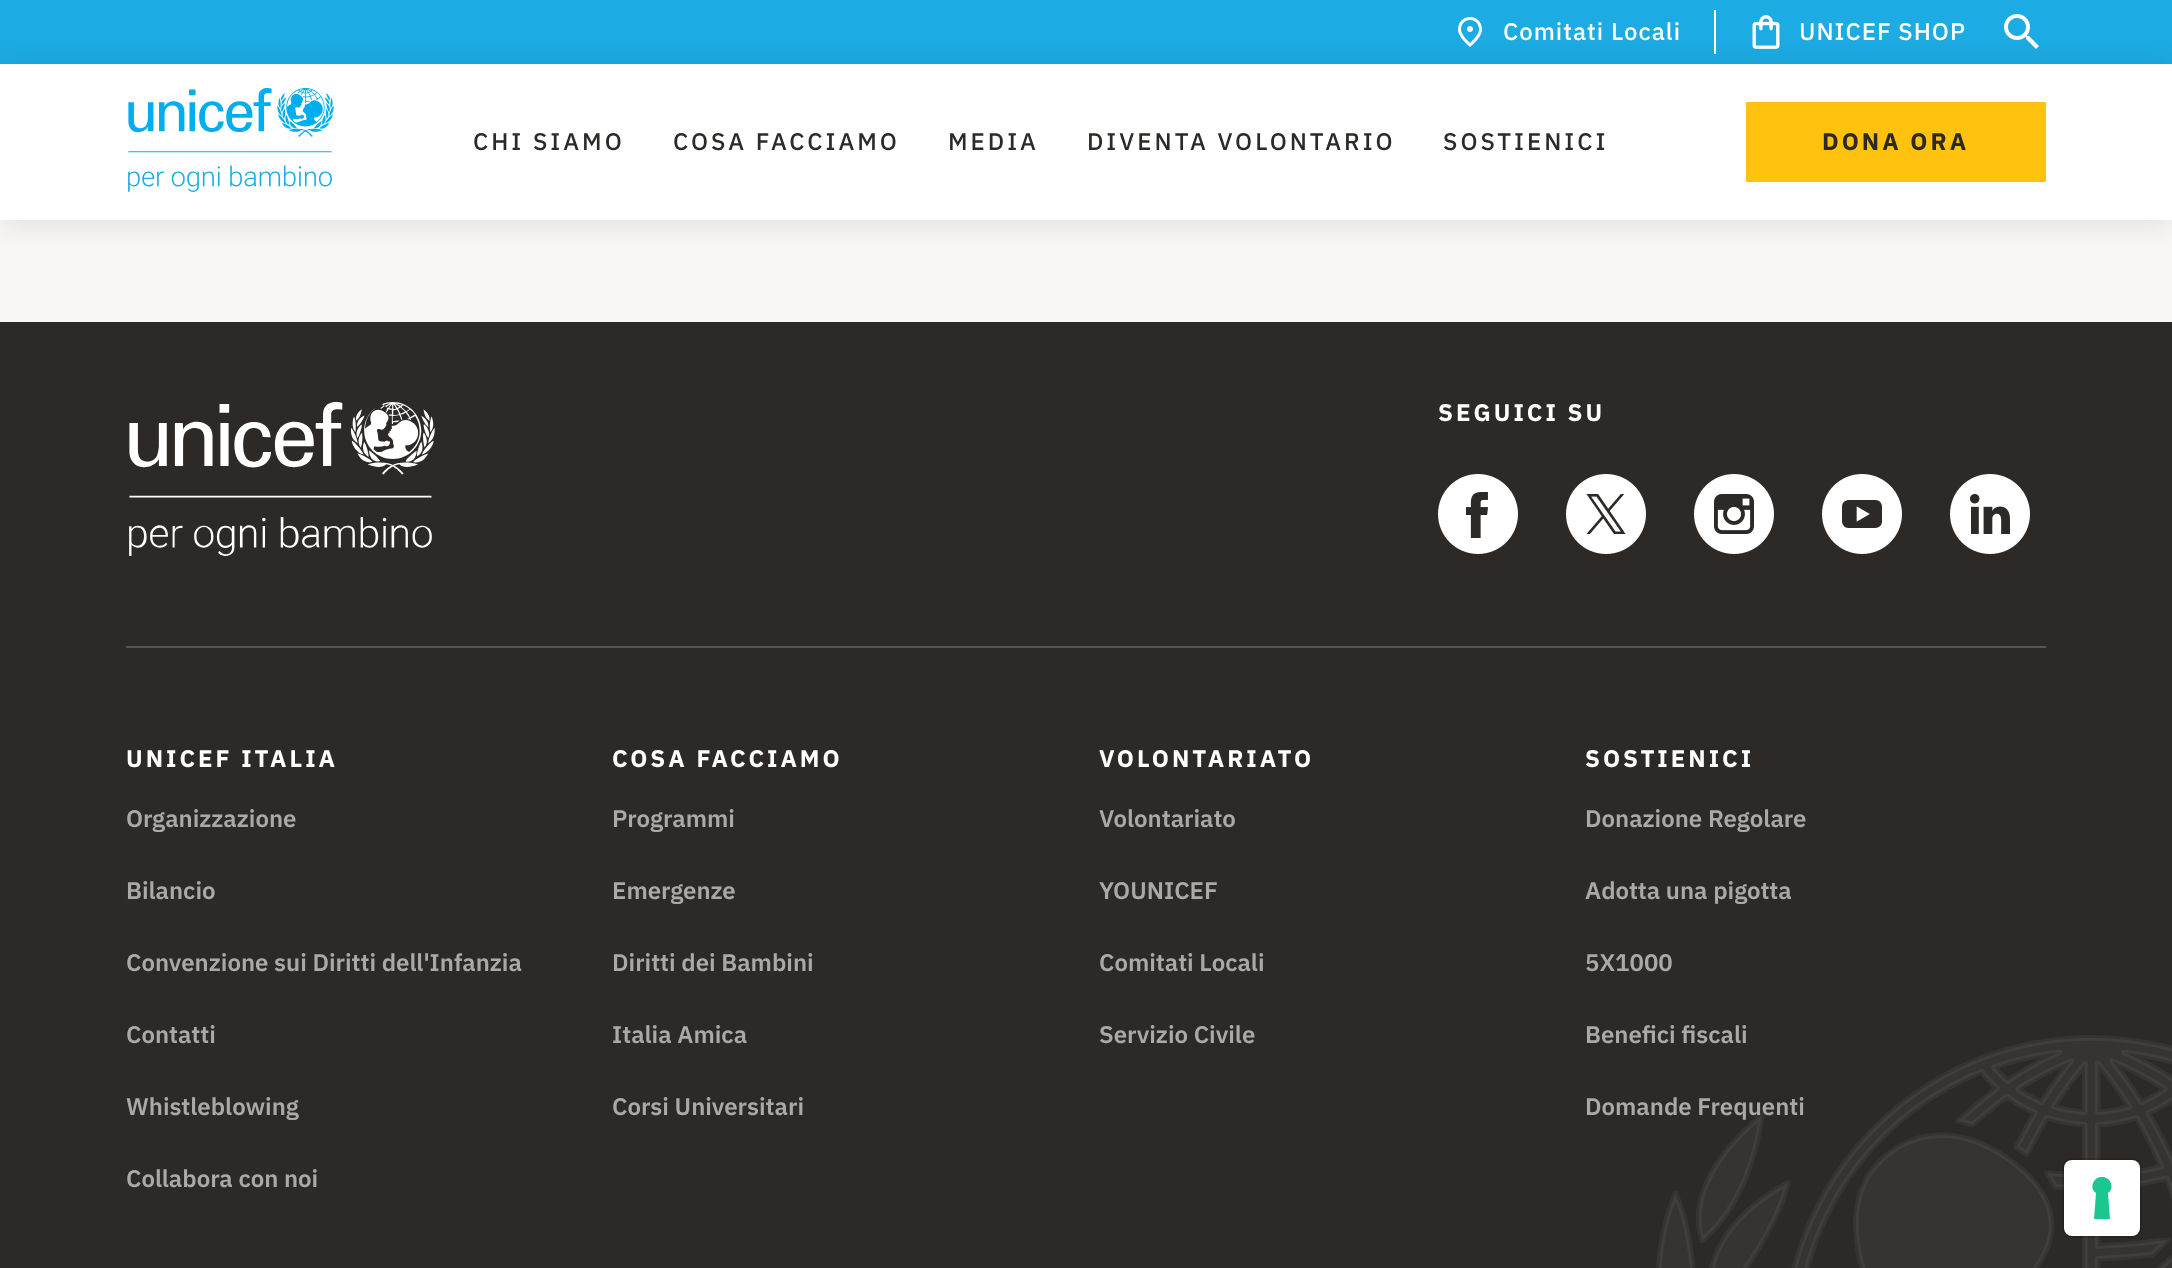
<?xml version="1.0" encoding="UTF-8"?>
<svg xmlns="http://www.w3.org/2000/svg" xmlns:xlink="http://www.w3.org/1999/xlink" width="2172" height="1268">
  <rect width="100%" height="100%" fill="#f8f7f5" />
  <rect width="2172" height="64" fill="#1cabe2" />
  <rect y="68" width="2172" height="156" fill="#000000" fill-opacity="0.1" filter="blur(15px)" />
  <image x="1458" y="17" width="24" height="30" xlink:href="image1.png" />
  <rect x="1714" y="10" width="2" height="44" fill="#ffffff" />
  <image x="1752" y="15" width="28" height="34" xlink:href="image2.png" />
  <image x="2004" y="14" width="35" height="35" xlink:href="image3.png" />
  <rect y="64" width="2172" height="156" fill="#ffffff" />
  <image x="128" y="88" width="206" height="104" xlink:href="image4.png" />
  <rect x="1746" y="102" width="300" height="80" fill="#ffc20e" />
  <rect y="322" width="2172" height="946" fill="#2d2926" />
  <image x="129" y="402" width="306" height="154" xlink:href="image5.png" />
  <image x="1438" y="474" width="80" height="80" xlink:href="image6.png" />
  <image x="1566" y="474" width="80" height="80" xlink:href="image7.png" />
  <image x="1694" y="474" width="80" height="80" xlink:href="image8.png" />
  <image x="1822" y="474" width="80" height="80" xlink:href="image9.png" />
  <image x="1950" y="474" width="80" height="80" xlink:href="image10.png" />
  <rect x="126" y="646" width="1920" height="2" fill="#575451" />
  <text x="1503" y="40" style="font-family: IBM Plex Sans; font-size: 24px; font-weight: 500; letter-spacing: 1px; fill: #ffffff">Comitati Locali</text>
  <text x="1799" y="40" style="font-family: IBM Plex Sans; font-size: 24px; font-weight: 500; letter-spacing: 1px; fill: #ffffff">UNICEF SHOP</text>
  <text x="473" y="150" style="font-family: IBM Plex Sans; font-size: 24px; font-weight: 500; letter-spacing: 3px; fill: #2d2926">CHI SIAMO</text>
  <text x="673" y="150" style="font-family: IBM Plex Sans; font-size: 24px; font-weight: 500; letter-spacing: 3px; fill: #2d2926">COSA FACCIAMO</text>
  <text x="948" y="150" style="font-family: IBM Plex Sans; font-size: 24px; font-weight: 500; letter-spacing: 3px; fill: #2d2926">MEDIA</text>
  <text x="1087" y="150" style="font-family: IBM Plex Sans; font-size: 24px; font-weight: 500; letter-spacing: 3px; fill: #2d2926">DIVENTA VOLONTARIO</text>
  <text x="1443" y="150" style="font-family: IBM Plex Sans; font-size: 24px; font-weight: 500; letter-spacing: 3px; fill: #2d2926">SOSTIENICI</text>
  <text x="1822" y="150" style="font-family: IBM Plex Sans; font-size: 24px; font-weight: bold; letter-spacing: 3px; fill: #2d2926">DONA ORA</text>
  <text x="1438" y="421" style="font-family: IBM Plex Sans; font-size: 24px; font-weight: bold; letter-spacing: 3px; fill: #ffffff">SEGUICI SU</text>
  <text x="126" y="767" style="font-family: IBM Plex Sans; font-size: 24px; font-weight: bold; letter-spacing: 3px; fill: #ffffff">UNICEF ITALIA</text>
  <text x="126" y="827" style="font-family: IBM Plex Sans; font-size: 24px; font-weight: 600; fill: #aba9a8">Organizzazione</text>
  <text x="126" y="899" style="font-family: IBM Plex Sans; font-size: 24px; font-weight: 600; fill: #aba9a8">Bilancio</text>
  <text x="126" y="971" style="font-family: IBM Plex Sans; font-size: 24px; font-weight: 600; fill: #aba9a8">Convenzione sui Diritti dell'Infanzia</text>
  <text x="126" y="1043" style="font-family: IBM Plex Sans; font-size: 24px; font-weight: 600; fill: #aba9a8">Contatti</text>
  <text x="126" y="1115" style="font-family: IBM Plex Sans; font-size: 24px; font-weight: 600; fill: #aba9a8">Whistleblowing</text>
  <text x="126" y="1187" style="font-family: IBM Plex Sans; font-size: 24px; font-weight: 600; fill: #aba9a8">Collabora con noi</text>
  <text x="612" y="767" style="font-family: IBM Plex Sans; font-size: 24px; font-weight: bold; letter-spacing: 3px; fill: #ffffff">COSA FACCIAMO</text>
  <text x="612" y="827" style="font-family: IBM Plex Sans; font-size: 24px; font-weight: 600; fill: #aba9a8">Programmi</text>
  <text x="612" y="899" style="font-family: IBM Plex Sans; font-size: 24px; font-weight: 600; fill: #aba9a8">Emergenze</text>
  <text x="612" y="971" style="font-family: IBM Plex Sans; font-size: 24px; font-weight: 600; fill: #aba9a8">Diritti dei Bambini</text>
  <text x="612" y="1043" style="font-family: IBM Plex Sans; font-size: 24px; font-weight: 600; fill: #aba9a8">Italia Amica</text>
  <text x="612" y="1115" style="font-family: IBM Plex Sans; font-size: 24px; font-weight: 600; fill: #aba9a8">Corsi Universitari</text>
  <text x="1099" y="767" style="font-family: IBM Plex Sans; font-size: 24px; font-weight: bold; letter-spacing: 3px; fill: #ffffff">VOLONTARIATO</text>
  <text x="1099" y="827" style="font-family: IBM Plex Sans; font-size: 24px; font-weight: 600; fill: #aba9a8">Volontariato</text>
  <text x="1099" y="899" style="font-family: IBM Plex Sans; font-size: 24px; font-weight: 600; fill: #aba9a8">YOUNICEF</text>
  <text x="1099" y="971" style="font-family: IBM Plex Sans; font-size: 24px; font-weight: 600; fill: #aba9a8">Comitati Locali</text>
  <text x="1099" y="1043" style="font-family: IBM Plex Sans; font-size: 24px; font-weight: 600; fill: #aba9a8">Servizio Civile</text>
  <text x="1585" y="767" style="font-family: IBM Plex Sans; font-size: 24px; font-weight: bold; letter-spacing: 3px; fill: #ffffff">SOSTIENICI</text>
  <text x="1585" y="827" style="font-family: IBM Plex Sans; font-size: 24px; font-weight: 600; fill: #aba9a8">Donazione Regolare</text>
  <text x="1585" y="899" style="font-family: IBM Plex Sans; font-size: 24px; font-weight: 600; fill: #aba9a8">Adotta una pigotta</text>
  <text x="1585" y="971" style="font-family: IBM Plex Sans; font-size: 24px; font-weight: 600; fill: #aba9a8">5X1000</text>
  <text x="1585" y="1043" style="font-family: IBM Plex Sans; font-size: 24px; font-weight: 600; fill: #aba9a8">Benefici fiscali</text>
  <text x="1585" y="1115" style="font-family: IBM Plex Sans; font-size: 24px; font-weight: 600; fill: #aba9a8">Domande Frequenti</text>
  <image x="1656" y="1035" width="516" height="233" xlink:href="image11.png" />
  <rect x="2063" y="1159" width="78" height="78" rx="9" fill="none" stroke="#000000" stroke-opacity="0.15" stroke-width="2" />
  <rect x="2064" y="1160" width="76" height="76" rx="8" fill="#ffffff" />
  <path d="M 2102 1177 c 9 0 13 11 6 16 l 2 26 h -16 l 2 -26 c -7 -5 -3 -16 6 -16 z" fill="#1cc691" fill-rule="evenodd" />
</svg>
